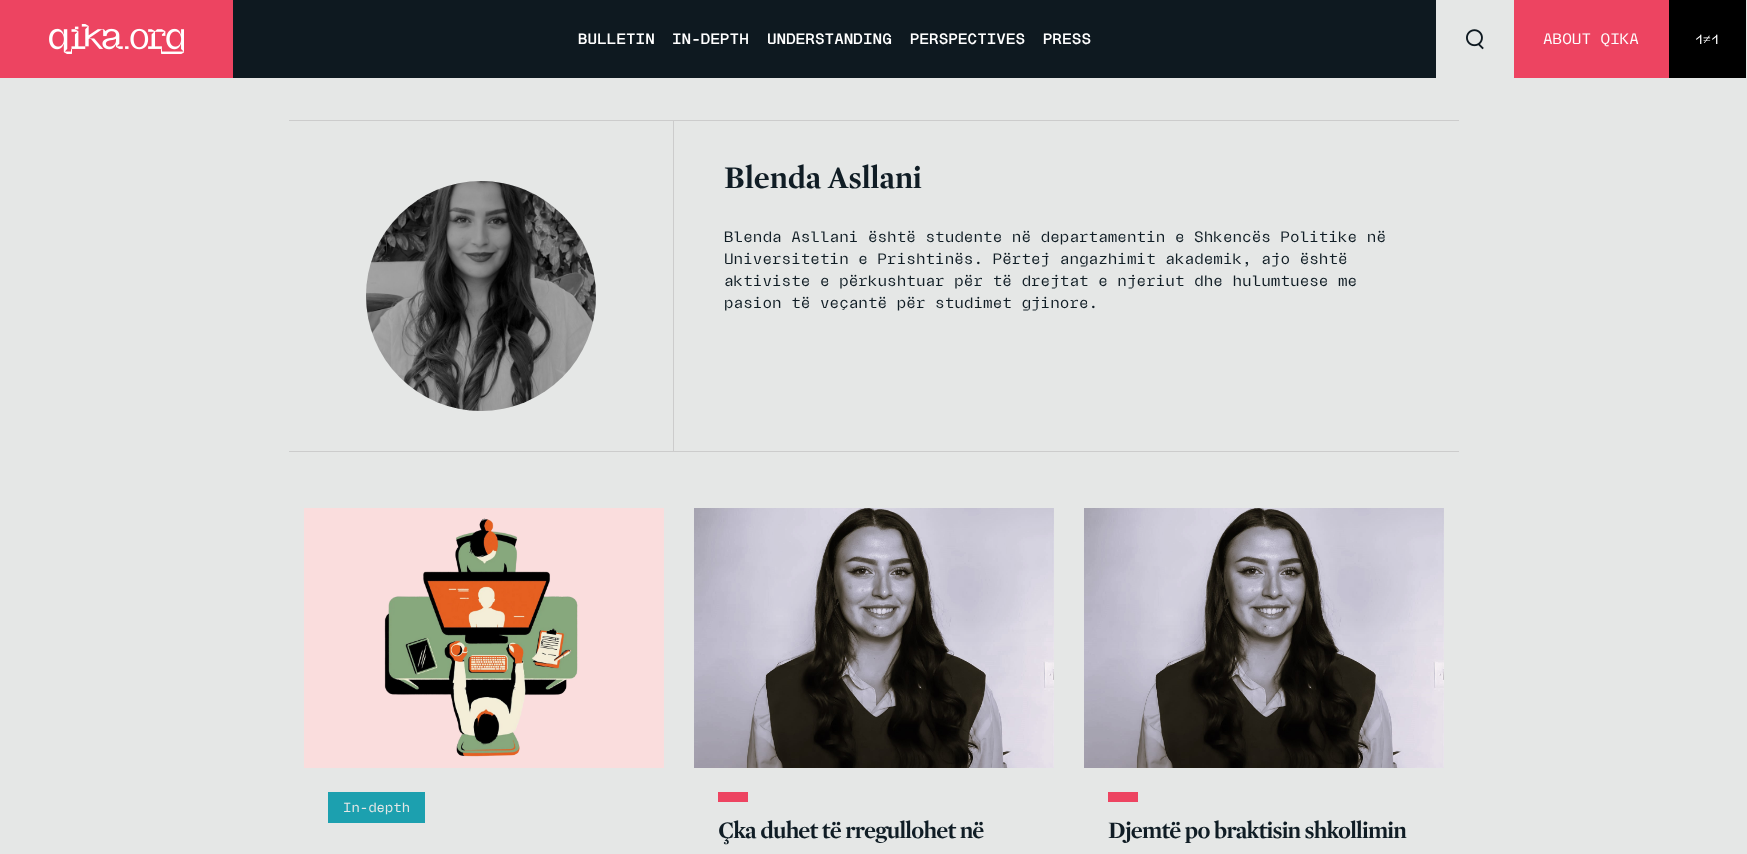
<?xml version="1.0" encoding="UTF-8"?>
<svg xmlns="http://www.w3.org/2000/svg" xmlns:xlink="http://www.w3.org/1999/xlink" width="1747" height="854">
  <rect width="100%" height="100%" fill="#e5e7e6" />
  <rect width="233" height="78" fill="#ed4461" />
  <image x="49" y="24" width="135" height="30" xlink:href="image1.png" />
  <rect x="233" width="1203" height="78" fill="#0e1920" />
  <image x="1466" y="29" width="18" height="21" xlink:href="image2.png" />
  <rect x="1514" width="155" height="78" fill="#ed4461" />
  <rect x="1669" width="77" height="78" fill="#000000" />
  <rect x="289" y="120" width="1170" height="1" fill="#cccccc" />
  <rect x="289" y="451" width="1170" height="1" fill="#cccccc" />
  <rect x="673" y="121" width="1" height="330" fill="#cccccc" />
  <image x="366" y="181" width="230" height="230" xlink:href="image3.png" />
  <image x="304" y="508" width="360" height="260" xlink:href="image4.png" />
  <rect x="328" y="792" width="97" height="31" fill="#1ca0af" />
  <image x="694" y="508" width="360" height="260" xlink:href="image5.png" />
  <rect x="718" y="792" width="30" height="10" fill="#ed4461" />
  <image x="1084" y="508" width="360" height="260" xlink:href="image6.png" />
  <rect x="1108" y="792" width="30" height="10" fill="#ed4461" />
  <text x="578" y="44" style="font-family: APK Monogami; font-size: 16px; font-weight: bold; fill: #ffffff">BULLETIN</text>
  <text x="672" y="44" style="font-family: APK Monogami; font-size: 16px; font-weight: bold; fill: #ffffff">IN-DEPTH</text>
  <text x="767" y="44" style="font-family: APK Monogami; font-size: 16px; font-weight: bold; fill: #ffffff">UNDERSTANDING</text>
  <text x="910" y="44" style="font-family: APK Monogami; font-size: 16px; font-weight: bold; fill: #ffffff">PERSPECTIVES</text>
  <text x="1043" y="44" style="font-family: APK Monogami; font-size: 16px; font-weight: bold; fill: #ffffff">PRESS</text>
  <text x="1543" y="44" style="font-family: APK Monogami; font-size: 16px; fill: #ffffff">ABOUT QIKA</text>
  <text x="1695" y="44" style="font-family: APK Monogami; font-size: 14px; fill: #ffffff">1</text>
  <text x="1703" y="44" style="font-family: Liberation Serif; font-size: 14px; fill: #ffffff">≠</text>
  <text x="1711" y="44" style="font-family: APK Monogami; font-size: 14px; fill: #ffffff">1</text>
  <text x="724" y="188" style="font-family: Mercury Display; font-size: 32px; font-weight: bold; fill: #101d25">Blenda Asllani</text>
  <text x="724" y="242" style="font-family: APK Monogami; font-size: 16px; fill: #101d25">Blenda Asllani është studente në departamentin e Shkencës Politike në</text>
  <text x="724" y="264" style="font-family: APK Monogami; font-size: 16px; fill: #101d25">Universitetin e Prishtinës. Përtej angazhimit akademik, ajo është</text>
  <text x="724" y="286" style="font-family: APK Monogami; font-size: 16px; fill: #101d25">aktiviste e përkushtuar për të drejtat e njeriut dhe hulumtuese me</text>
  <text x="724" y="308" style="font-family: APK Monogami; font-size: 16px; fill: #101d25">pasion të veçantë për studimet gjinore.</text>
  <text x="343" y="812" style="font-family: APK Monogami; font-size: 14px; fill: #e5e7e6">In-depth</text>
  <text x="718" y="838" style="font-family: Mercury Display; font-size: 24px; font-weight: bold; letter-spacing: -0.75px; fill: #101d25">Çka duhet të rregullohet në</text>
  <text x="1108" y="838" style="font-family: Mercury Display; font-size: 24px; font-weight: bold; letter-spacing: -0.75px; fill: #101d25">Djemtë po braktisin shkollimin</text>
</svg>
